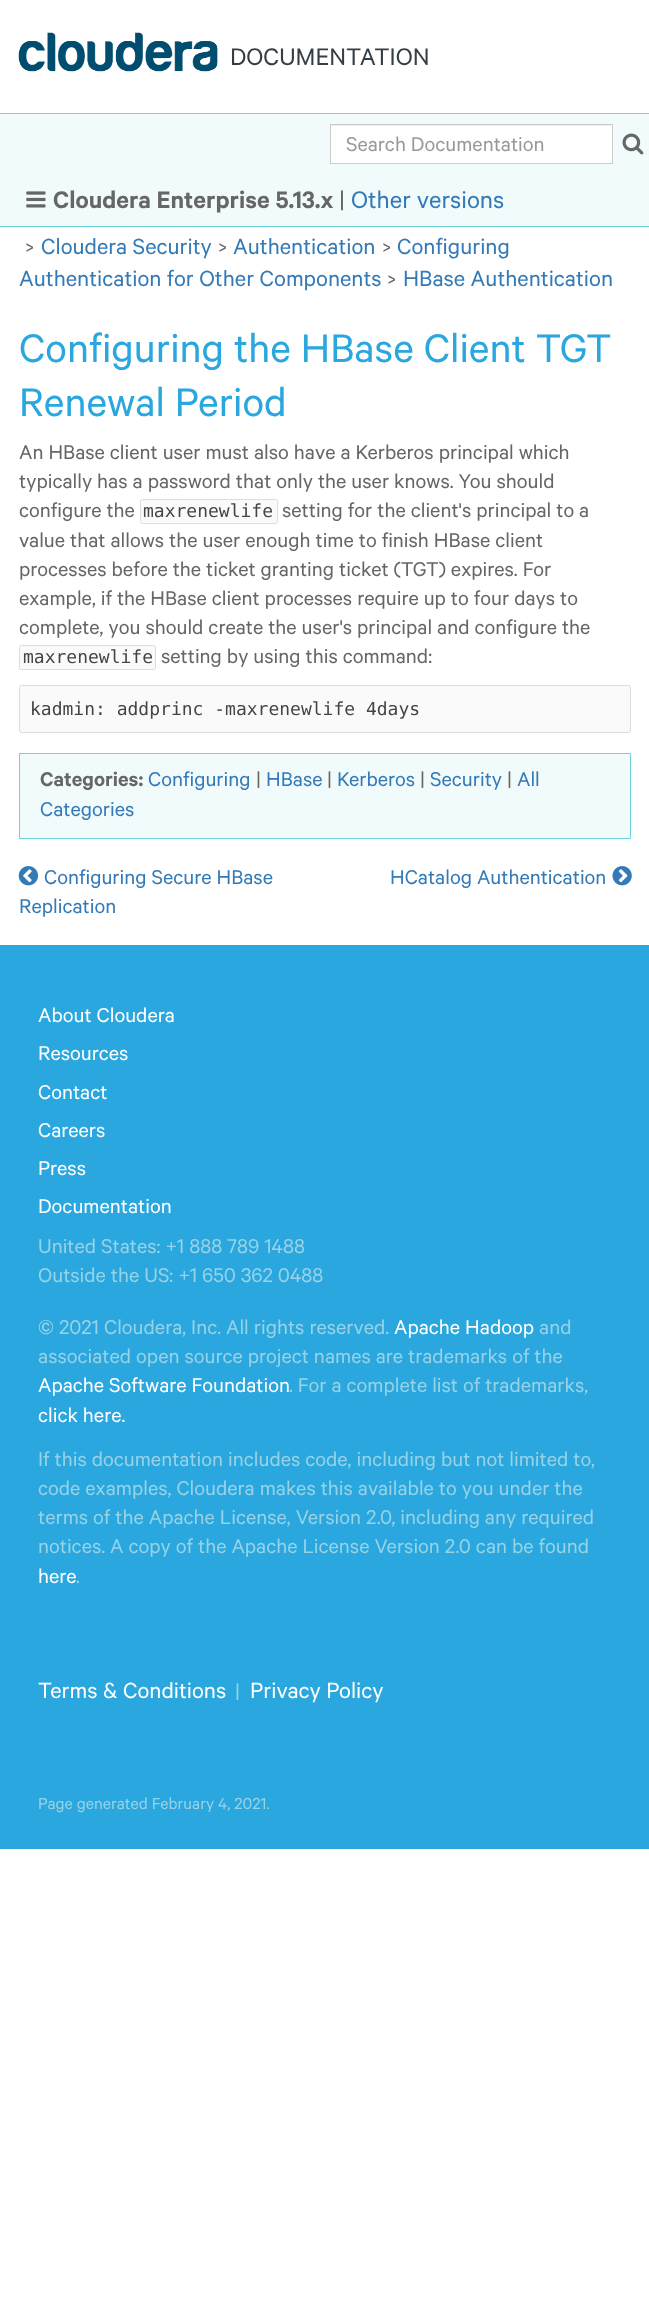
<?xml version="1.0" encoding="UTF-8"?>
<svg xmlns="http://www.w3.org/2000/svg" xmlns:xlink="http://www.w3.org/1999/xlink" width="649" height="2321">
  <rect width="100%" height="100%" fill="#ffffff" />
  <image x="18" y="32" width="200" height="40" xlink:href="image1.png" />
  <rect y="114" width="649" height="114" fill="#f2fbfb" />
  <rect y="113" width="649" height="1" fill="#6dd3dc" />
  <rect y="226" width="649" height="1" fill="#6dd3dc" />
  <rect x="331" y="125" width="281" height="38" fill="#ffffff" />
  <rect x="331" y="125" width="280" height="1" fill="#ececec" />
  <rect x="330.5" y="124.5" width="282" height="39" fill="none" stroke="#cccccc" />
  <image x="622" y="133" width="22" height="22" xlink:href="image2.png" />
  <image x="26" y="191" width="20" height="17" xlink:href="image3.png" />
  <rect x="140.5" y="499.5" width="137" height="24" rx="2" fill="#fafafa" stroke="#dcdcdc" />
  <rect x="19.5" y="645.5" width="136" height="24" rx="2" fill="#fafafa" stroke="#dcdcdc" />
  <rect x="19.5" y="685.5" width="611" height="47" rx="2" fill="#fafafa" stroke="#dcdcdc" />
  <rect x="19.5" y="753.5" width="611" height="85" fill="#f2fbfb" stroke="#6dd3dc" />
  <image x="18" y="866" width="20" height="20" xlink:href="image4.png" />
  <image x="612" y="866" width="20" height="20" xlink:href="image5.png" />
  <rect y="945" width="649" height="904" fill="#29a7de" />
  <text x="230" y="65" style="font-family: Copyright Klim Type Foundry; font-size: 27px; fill: #333e47">DOCUMENTATION</text>
  <text x="346" y="151" style="font-family: Copyright Klim Type Foundry; font-size: 22.5px; fill: #999999">Search Documentation</text>
  <text x="53" y="208" style="font-family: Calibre; font-size: 27px; font-weight: 600; fill: #666666">Cloudera Enterprise 5.13.x</text>
  <text x="339" y="208" style="font-family: Copyright Klim Type Foundry; font-size: 27px; fill: #666666">|</text>
  <text x="351" y="208" style="font-family: Copyright Klim Type Foundry; font-size: 27px; fill: #337ab7">Other versions</text>
  <text x="25" y="254" style="font-family: Copyright Klim Type Foundry; font-size: 22px; fill: #666666">&gt;</text>
  <text x="41" y="254" style="font-family: Copyright Klim Type Foundry; font-size: 24.75px; fill: #337ab7">Cloudera Security</text>
  <text x="218" y="254" style="font-family: Copyright Klim Type Foundry; font-size: 22px; fill: #666666">&gt;</text>
  <text x="233" y="254" style="font-family: Copyright Klim Type Foundry; font-size: 24.75px; fill: #337ab7">Authentication</text>
  <text x="382" y="254" style="font-family: Copyright Klim Type Foundry; font-size: 22px; fill: #666666">&gt;</text>
  <text x="397" y="254" style="font-family: Copyright Klim Type Foundry; font-size: 24.75px; fill: #337ab7">Configuring</text>
  <text x="19" y="286" style="font-family: Copyright Klim Type Foundry; font-size: 24.75px; fill: #337ab7">Authentication for Other Components</text>
  <text x="387" y="286" style="font-family: Copyright Klim Type Foundry; font-size: 22px; fill: #666666">&gt;</text>
  <text x="403" y="286" style="font-family: Copyright Klim Type Foundry; font-size: 24.75px; fill: #337ab7">HBase Authentication</text>
  <text x="19" y="362" style="font-family: Copyright Klim Type Foundry; font-size: 45px; fill: #29a7de">Configuring the HBase Client TGT</text>
  <text x="19" y="416" style="font-family: Copyright Klim Type Foundry; font-size: 45px; fill: #29a7de">Renewal Period</text>
  <text x="19" y="459" style="font-family: Copyright Klim Type Foundry; font-size: 22.5px; fill: #666666">An HBase client user must also have a Kerberos principal which</text>
  <text x="19" y="488" style="font-family: Copyright Klim Type Foundry; font-size: 22.5px; fill: #666666">typically has a password that only the user knows. You should</text>
  <text x="19" y="517" style="font-family: Copyright Klim Type Foundry; font-size: 22.5px; fill: #666666">configure the</text>
  <text x="143" y="517" style="font-family: DejaVu Sans Mono; font-size: 18px; fill: #444444">maxrenewlife</text>
  <text x="282" y="517" style="font-family: Copyright Klim Type Foundry; font-size: 22.5px; fill: #666666">setting for the client's principal to a</text>
  <text x="19" y="547" style="font-family: Copyright Klim Type Foundry; font-size: 22.5px; fill: #666666">value that allows the user enough time to finish HBase client</text>
  <text x="19" y="576" style="font-family: Copyright Klim Type Foundry; font-size: 22.5px; fill: #666666">processes before the ticket granting ticket (TGT) expires. For</text>
  <text x="19" y="605" style="font-family: Copyright Klim Type Foundry; font-size: 22.5px; fill: #666666">example, if the HBase client processes require up to four days to</text>
  <text x="19" y="634" style="font-family: Copyright Klim Type Foundry; font-size: 22.5px; fill: #666666">complete, you should create the user's principal and configure the</text>
  <text x="23" y="663" style="font-family: DejaVu Sans Mono; font-size: 18px; fill: #444444">maxrenewlife</text>
  <text x="161" y="663" style="font-family: Copyright Klim Type Foundry; font-size: 22.5px; fill: #666666">setting by using this command:</text>
  <text x="30" y="715" style="font-family: DejaVu Sans Mono; font-size: 18px; fill: #444444">kadmin: addprinc -maxrenewlife 4days</text>
  <text x="40" y="786" style="font-family: Calibre; font-size: 22.5px; font-weight: 600; fill: #666666">Categories:</text>
  <text x="148" y="786" style="font-family: Copyright Klim Type Foundry; font-size: 22.5px; fill: #337ab7">Configuring</text>
  <text x="256" y="786" style="font-family: Copyright Klim Type Foundry; font-size: 22.5px; fill: #666666">|</text>
  <text x="266" y="786" style="font-family: Copyright Klim Type Foundry; font-size: 22.5px; fill: #337ab7">HBase</text>
  <text x="327" y="786" style="font-family: Copyright Klim Type Foundry; font-size: 22.5px; fill: #666666">|</text>
  <text x="337" y="786" style="font-family: Copyright Klim Type Foundry; font-size: 22.5px; fill: #337ab7">Kerberos</text>
  <text x="420" y="786" style="font-family: Copyright Klim Type Foundry; font-size: 22.5px; fill: #666666">|</text>
  <text x="430" y="786" style="font-family: Copyright Klim Type Foundry; font-size: 22.5px; fill: #337ab7">Security</text>
  <text x="507" y="786" style="font-family: Copyright Klim Type Foundry; font-size: 22.5px; fill: #666666">|</text>
  <text x="517" y="786" style="font-family: Copyright Klim Type Foundry; font-size: 22.5px; fill: #337ab7">All</text>
  <text x="40" y="816" style="font-family: Copyright Klim Type Foundry; font-size: 22.5px; fill: #337ab7">Categories</text>
  <text x="44" y="884" style="font-family: Copyright Klim Type Foundry; font-size: 22.5px; fill: #337ab7">Configuring Secure HBase</text>
  <text x="19" y="913" style="font-family: Copyright Klim Type Foundry; font-size: 22.5px; fill: #337ab7">Replication</text>
  <text x="390" y="884" style="font-family: Copyright Klim Type Foundry; font-size: 22.5px; fill: #337ab7">HCatalog Authentication</text>
  <text x="38" y="1022" style="font-family: Copyright Klim Type Foundry; font-size: 22.5px; fill: #ffffff">About Cloudera</text>
  <text x="38" y="1060" style="font-family: Copyright Klim Type Foundry; font-size: 22.5px; fill: #ffffff">Resources</text>
  <text x="38" y="1099" style="font-family: Copyright Klim Type Foundry; font-size: 22.5px; fill: #ffffff">Contact</text>
  <text x="38" y="1137" style="font-family: Copyright Klim Type Foundry; font-size: 22.5px; fill: #ffffff">Careers</text>
  <text x="38" y="1175" style="font-family: Copyright Klim Type Foundry; font-size: 22.5px; fill: #ffffff">Press</text>
  <text x="38" y="1213" style="font-family: Copyright Klim Type Foundry; font-size: 22.5px; fill: #ffffff">Documentation</text>
  <text x="38" y="1253" style="font-family: Copyright Klim Type Foundry; font-size: 22.5px; fill: #97d2e6">United States: +1 888 789 1488</text>
  <text x="38" y="1282" style="font-family: Copyright Klim Type Foundry; font-size: 22.5px; fill: #97d2e6">Outside the US: +1 650 362 0488</text>
  <text x="38" y="1334" style="font-family: Copyright Klim Type Foundry; font-size: 22.5px; fill: #97d2e6">© 2021 Cloudera, Inc. All rights reserved.</text>
  <text x="394" y="1334" style="font-family: Copyright Klim Type Foundry; font-size: 22.5px; fill: #ffffff">Apache Hadoop</text>
  <text x="539" y="1334" style="font-family: Copyright Klim Type Foundry; font-size: 22.5px; fill: #97d2e6">and</text>
  <text x="38" y="1363" style="font-family: Copyright Klim Type Foundry; font-size: 22.5px; fill: #97d2e6">associated open source project names are trademarks of the</text>
  <text x="38" y="1392" style="font-family: Copyright Klim Type Foundry; font-size: 22.5px; fill: #ffffff">Apache Software Foundation</text>
  <text x="289" y="1392" style="font-family: Copyright Klim Type Foundry; font-size: 22.5px; fill: #97d2e6">. For a complete list of trademarks,</text>
  <text x="38" y="1422" style="font-family: Copyright Klim Type Foundry; font-size: 22.5px; fill: #ffffff">click here.</text>
  <text x="38" y="1466" style="font-family: Copyright Klim Type Foundry; font-size: 22.5px; fill: #97d2e6">If this documentation includes code, including but not limited to,</text>
  <text x="38" y="1495" style="font-family: Copyright Klim Type Foundry; font-size: 22.5px; fill: #97d2e6">code examples, Cloudera makes this available to you under the</text>
  <text x="38" y="1524" style="font-family: Copyright Klim Type Foundry; font-size: 22.5px; fill: #97d2e6">terms of the Apache License, Version 2.0, including any required</text>
  <text x="38" y="1553" style="font-family: Copyright Klim Type Foundry; font-size: 22.5px; fill: #97d2e6">notices. A copy of the Apache License Version 2.0 can be found</text>
  <text x="38" y="1583" style="font-family: Copyright Klim Type Foundry; font-size: 22.5px; fill: #ffffff">here</text>
  <text x="76" y="1583" style="font-family: Copyright Klim Type Foundry; font-size: 22.5px; fill: #97d2e6">.</text>
  <text x="38" y="1698" style="font-family: Copyright Klim Type Foundry; font-size: 24.75px; fill: #ffffff">Terms &amp; Conditions</text>
  <text x="235" y="1698" style="font-family: Copyright Klim Type Foundry; font-size: 22.5px; fill: #97d2e6">|</text>
  <text x="250" y="1698" style="font-family: Copyright Klim Type Foundry; font-size: 24.75px; fill: #ffffff">Privacy Policy</text>
  <text x="38" y="1809" style="font-family: Copyright Klim Type Foundry; font-size: 18px; fill: #97d2e6">Page generated February 4, 2021.</text>
</svg>
